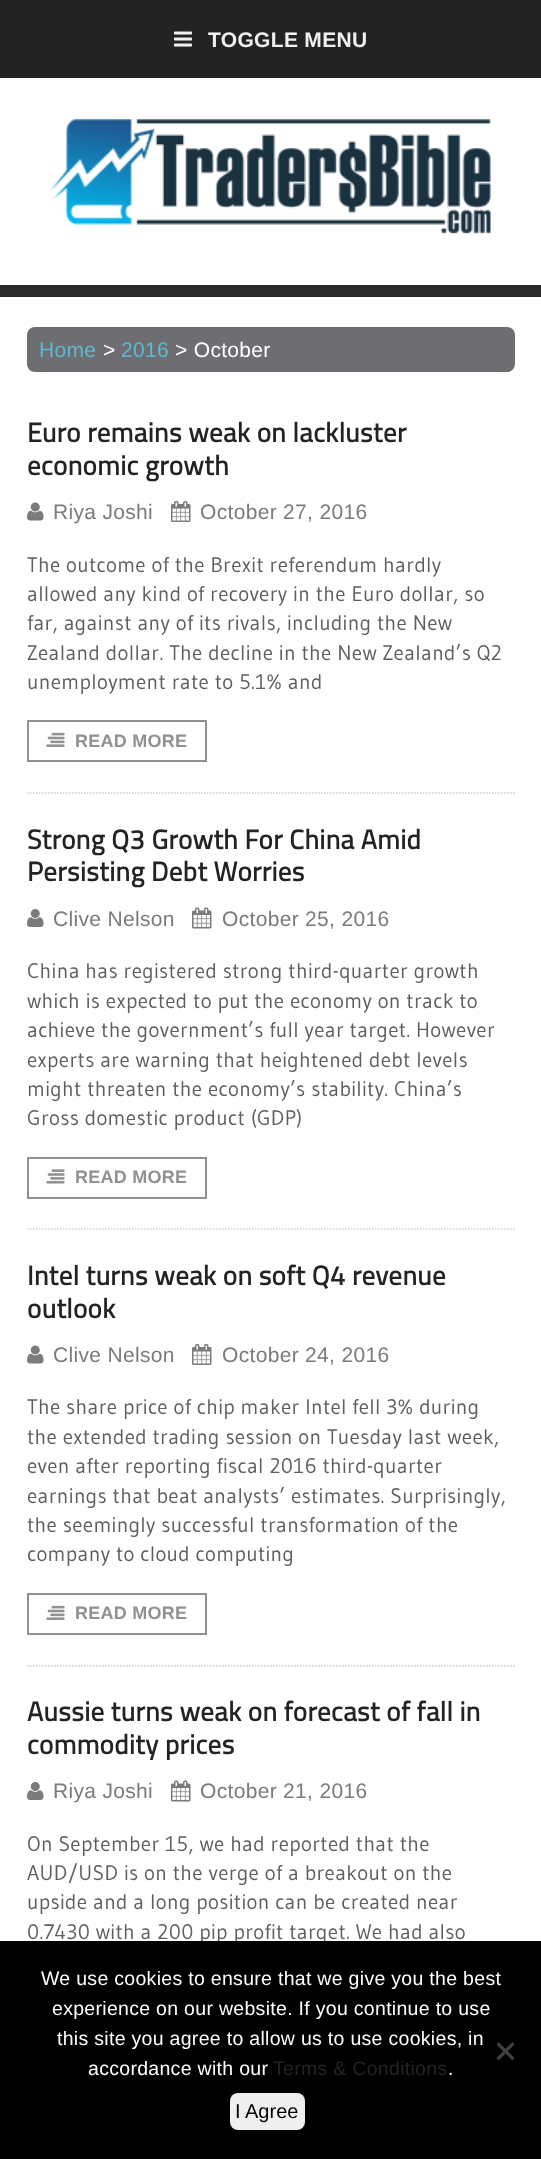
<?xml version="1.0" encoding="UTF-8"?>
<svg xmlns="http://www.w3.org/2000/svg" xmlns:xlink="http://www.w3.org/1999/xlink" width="541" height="2159">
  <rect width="100%" height="100%" fill="#ffffff" />
  <rect width="541" height="78" fill="#232323" />
  <image x="174" y="31" width="18" height="16" xlink:href="image1.png" />
  <image x="51" y="119" width="440" height="115" xlink:href="image2.png" />
  <rect y="285" width="541" height="12" fill="#292929" />
  <rect x="27" y="327" width="488" height="45" rx="8" fill="#6e6d71" />
  <path d="M 27 793 h 487.5" fill="none" stroke="#cccccc" stroke-width="1.5" stroke-dasharray="1.5 1.5" />
  <image x="27" y="502" width="17" height="19" xlink:href="image3.png" />
  <image x="171" y="501" width="20" height="21" xlink:href="image4.png" />
  <rect x="28" y="721" width="178" height="40" fill="none" stroke="#919191" stroke-width="2" />
  <image x="46" y="732" width="19" height="15" xlink:href="image5.png" />
  <path d="M 27 1229 h 487.5" fill="none" stroke="#cccccc" stroke-width="1.5" stroke-dasharray="1.5 1.5" />
  <image x="27" y="909" width="17" height="18" xlink:href="image6.png" />
  <image x="192" y="907" width="20" height="22" xlink:href="image7.png" />
  <rect x="28" y="1158" width="178" height="40" fill="none" stroke="#919191" stroke-width="2" />
  <image x="46" y="1169" width="19" height="15" xlink:href="image8.png" />
  <path d="M 27 1666 h 487.5" fill="none" stroke="#cccccc" stroke-width="1.5" stroke-dasharray="1.5 1.5" />
  <image x="27" y="1345" width="17" height="19" xlink:href="image3.png" />
  <image x="192" y="1344" width="20" height="21" xlink:href="image4.png" />
  <rect x="28" y="1594" width="178" height="40" fill="none" stroke="#919191" stroke-width="2" />
  <image x="46" y="1605" width="19" height="15" xlink:href="image5.png" />
  <image x="27" y="1782" width="17" height="18" xlink:href="image6.png" />
  <image x="171" y="1780" width="20" height="22" xlink:href="image7.png" />
  <text x="208" y="47" style="font-family: Liberation Sans; font-size: 21px; font-weight: bold; letter-spacing: 0.32px; fill: #f0f0f0">TOGGLE MENU</text>
  <text x="39" y="357" style="font-family: Liberation Sans; font-size: 21px; letter-spacing: 0.32px; fill: #5cbad1">Home</text>
  <text x="103" y="357" style="font-family: Liberation Sans; font-size: 21px; letter-spacing: 0.32px; fill: #ffffff">&gt;</text>
  <text x="121" y="357" style="font-family: Liberation Sans; font-size: 21px; letter-spacing: 0.32px; fill: #5cbad1">2016</text>
  <text x="175" y="357" style="font-family: Liberation Sans; font-size: 21px; letter-spacing: 0.32px; fill: #ffffff">&gt; October</text>
  <text x="27" y="442" style="font-family: Titillium Web; font-size: 27px; font-weight: bold; letter-spacing: 0.4px; fill: #232323">Euro remains weak on lackluster</text>
  <text x="27" y="475" style="font-family: Titillium Web; font-size: 27px; font-weight: bold; letter-spacing: 0.4px; fill: #232323">economic growth</text>
  <text x="53" y="519" style="font-family: Liberation Sans; font-size: 21px; letter-spacing: 0.32px; fill: #7b7b7b">Riya Joshi</text>
  <text x="200" y="519" style="font-family: Liberation Sans; font-size: 21px; letter-spacing: 0.32px; fill: #7b7b7b">October 27, 2016</text>
  <text x="27" y="572" style="font-family: Gudea; font-size: 21px; letter-spacing: 0.32px; fill: #5e5e5e">The outcome of the Brexit referendum hardly</text>
  <text x="27" y="601" style="font-family: Gudea; font-size: 21px; letter-spacing: 0.32px; fill: #5e5e5e">allowed any kind of recovery in the Euro dollar, so</text>
  <text x="27" y="630" style="font-family: Gudea; font-size: 21px; letter-spacing: 0.32px; fill: #5e5e5e">far, against any of its rivals, including the New</text>
  <text x="27" y="660" style="font-family: Gudea; font-size: 21px; letter-spacing: 0.32px; fill: #5e5e5e">Zealand dollar. The decline in the New Zealand’s Q2</text>
  <text x="27" y="689" style="font-family: Gudea; font-size: 21px; letter-spacing: 0.32px; fill: #5e5e5e">unemployment rate to 5.1% and</text>
  <text x="75" y="747" style="font-family: Liberation Sans; font-size: 18px; font-weight: bold; letter-spacing: 0.25px; fill: #919191">READ MORE</text>
  <text x="27" y="849" style="font-family: Titillium Web; font-size: 27px; font-weight: bold; letter-spacing: 0.4px; fill: #232323">Strong Q3 Growth For China Amid</text>
  <text x="27" y="881" style="font-family: Titillium Web; font-size: 27px; font-weight: bold; letter-spacing: 0.4px; fill: #232323">Persisting Debt Worries</text>
  <text x="53" y="926" style="font-family: Liberation Sans; font-size: 21px; letter-spacing: 0.32px; fill: #7b7b7b">Clive Nelson</text>
  <text x="222" y="926" style="font-family: Liberation Sans; font-size: 21px; letter-spacing: 0.32px; fill: #7b7b7b">October 25, 2016</text>
  <text x="27" y="978" style="font-family: Gudea; font-size: 21px; letter-spacing: 0.32px; fill: #5e5e5e">China has registered strong third-quarter growth</text>
  <text x="27" y="1008" style="font-family: Gudea; font-size: 21px; letter-spacing: 0.32px; fill: #5e5e5e">which is expected to put the economy on track to</text>
  <text x="27" y="1037" style="font-family: Gudea; font-size: 21px; letter-spacing: 0.32px; fill: #5e5e5e">achieve the government’s full year target. However</text>
  <text x="27" y="1067" style="font-family: Gudea; font-size: 21px; letter-spacing: 0.32px; fill: #5e5e5e">experts are warning that heightened debt levels</text>
  <text x="27" y="1096" style="font-family: Gudea; font-size: 21px; letter-spacing: 0.32px; fill: #5e5e5e">might threaten the economy’s stability. China’s</text>
  <text x="27" y="1125" style="font-family: Gudea; font-size: 21px; letter-spacing: 0.32px; fill: #5e5e5e">Gross domestic product (GDP)</text>
  <text x="75" y="1183" style="font-family: Liberation Sans; font-size: 18px; font-weight: bold; letter-spacing: 0.25px; fill: #919191">READ MORE</text>
  <text x="27" y="1285" style="font-family: Titillium Web; font-size: 27px; font-weight: bold; letter-spacing: 0.4px; fill: #232323">Intel turns weak on soft Q4 revenue</text>
  <text x="27" y="1318" style="font-family: Titillium Web; font-size: 27px; font-weight: bold; letter-spacing: 0.4px; fill: #232323">outlook</text>
  <text x="53" y="1362" style="font-family: Liberation Sans; font-size: 21px; letter-spacing: 0.32px; fill: #7b7b7b">Clive Nelson</text>
  <text x="222" y="1362" style="font-family: Liberation Sans; font-size: 21px; letter-spacing: 0.32px; fill: #7b7b7b">October 24, 2016</text>
  <text x="27" y="1414" style="font-family: Gudea; font-size: 21px; letter-spacing: 0.32px; fill: #5e5e5e">The share price of chip maker Intel fell 3% during</text>
  <text x="27" y="1444" style="font-family: Gudea; font-size: 21px; letter-spacing: 0.32px; fill: #5e5e5e">the extended trading session on Tuesday last week,</text>
  <text x="27" y="1473" style="font-family: Gudea; font-size: 21px; letter-spacing: 0.32px; fill: #5e5e5e">even after reporting fiscal 2016 third-quarter</text>
  <text x="27" y="1503" style="font-family: Gudea; font-size: 21px; letter-spacing: 0.32px; fill: #5e5e5e">earnings that beat analysts’ estimates. Surprisingly,</text>
  <text x="27" y="1532" style="font-family: Gudea; font-size: 21px; letter-spacing: 0.32px; fill: #5e5e5e">the seemingly successful transformation of the</text>
  <text x="27" y="1561" style="font-family: Gudea; font-size: 21px; letter-spacing: 0.32px; fill: #5e5e5e">company to cloud computing</text>
  <text x="75" y="1619" style="font-family: Liberation Sans; font-size: 18px; font-weight: bold; letter-spacing: 0.25px; fill: #919191">READ MORE</text>
  <text x="27" y="1721" style="font-family: Titillium Web; font-size: 27px; font-weight: bold; letter-spacing: 0.4px; fill: #232323">Aussie turns weak on forecast of fall in</text>
  <text x="27" y="1754" style="font-family: Titillium Web; font-size: 27px; font-weight: bold; letter-spacing: 0.4px; fill: #232323">commodity prices</text>
  <text x="53" y="1798" style="font-family: Liberation Sans; font-size: 21px; letter-spacing: 0.32px; fill: #7b7b7b">Riya Joshi</text>
  <text x="200" y="1798" style="font-family: Liberation Sans; font-size: 21px; letter-spacing: 0.32px; fill: #7b7b7b">October 21, 2016</text>
  <text x="27" y="1851" style="font-family: Gudea; font-size: 21px; letter-spacing: 0.32px; fill: #5e5e5e">On September 15, we had reported that the</text>
  <text x="27" y="1880" style="font-family: Gudea; font-size: 21px; letter-spacing: 0.32px; fill: #5e5e5e">AUD/USD is on the verge of a breakout on the</text>
  <text x="27" y="1909" style="font-family: Gudea; font-size: 21px; letter-spacing: 0.32px; fill: #5e5e5e">upside and a long position can be created near</text>
  <text x="27" y="1939" style="font-family: Gudea; font-size: 21px; letter-spacing: 0.32px; fill: #5e5e5e">0.7430 with a 200 pip profit target. We had also</text>
  <rect y="1941" width="541" height="218" fill="#000000" />
  <text x="41" y="1985" style="font-family: Liberation Sans; font-size: 19.5px; letter-spacing: 0.3px; fill: #ffffff">We use cookies to ensure that we give you the best</text>
  <text x="52" y="2015" style="font-family: Liberation Sans; font-size: 19.5px; letter-spacing: 0.3px; fill: #ffffff">experience on our website. If you continue to use</text>
  <text x="57" y="2045" style="font-family: Liberation Sans; font-size: 19.5px; letter-spacing: 0.3px; fill: #ffffff">this site you agree to allow us to use cookies, in</text>
  <text x="88" y="2075" style="font-family: Liberation Sans; font-size: 19.5px; letter-spacing: 0.3px; fill: #ffffff">accordance with our</text>
  <text x="273" y="2075" style="font-family: Liberation Sans; font-size: 19.5px; letter-spacing: 0.3px; fill: #232323">Terms &amp; Conditions</text>
  <text x="448" y="2075" style="font-family: Liberation Sans; font-size: 19.5px; letter-spacing: 0.3px; fill: #ffffff">.</text>
  <path d="M 512.5 2042 l 2 2.5 l -16 16 l -2 -2.5 z" fill="#404040" />
  <path d="M 496.5 2044.5 l 2 -2.5 l 16 16 l -2 2.5 z" fill="#404040" />
  <rect x="230" y="2093" width="75" height="37" rx="8" fill="#efefef" />
  <text x="235" y="2118" style="font-family: Liberation Sans; font-size: 20px; fill: #000000">I Agree</text>
</svg>
